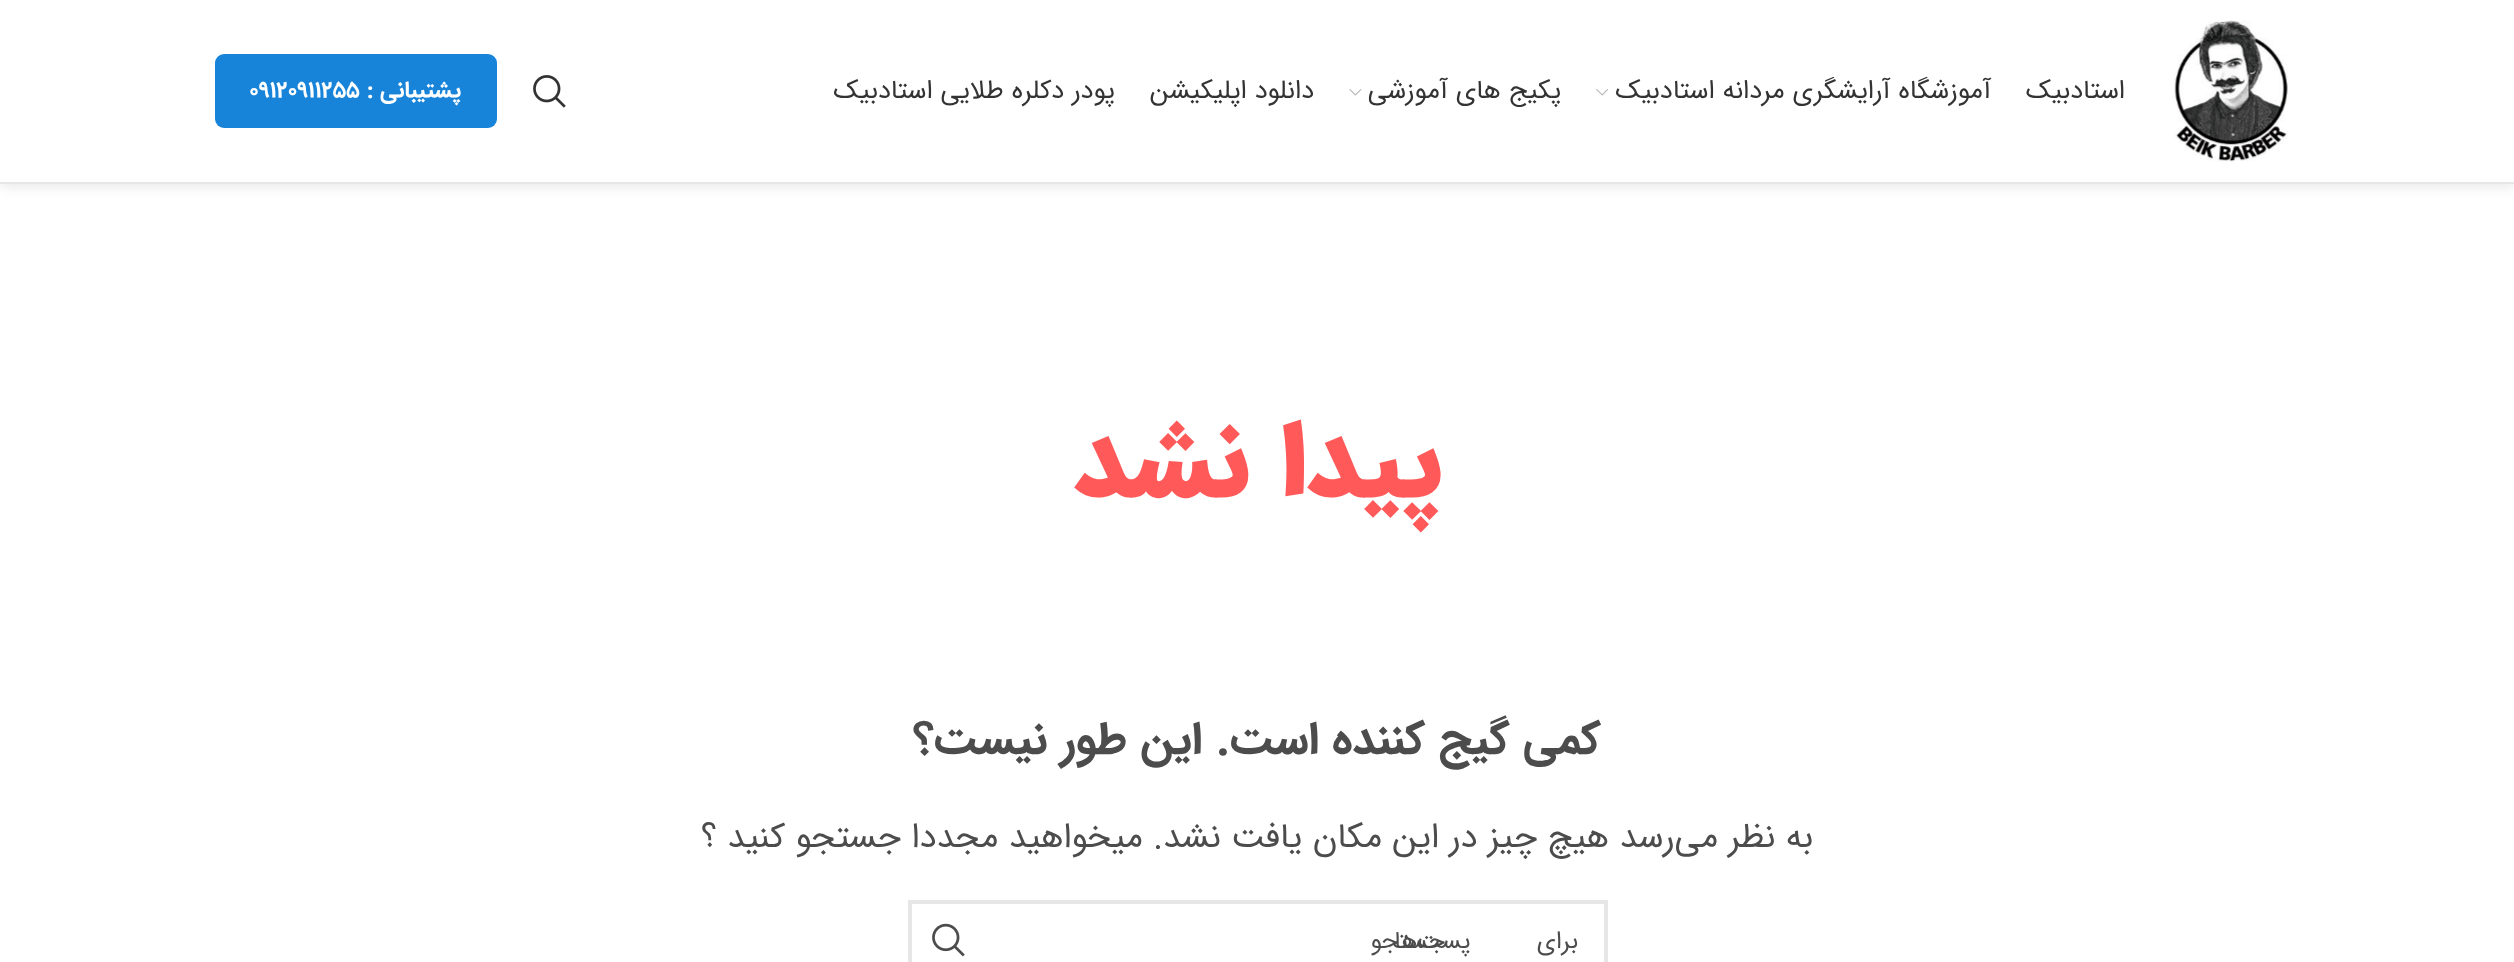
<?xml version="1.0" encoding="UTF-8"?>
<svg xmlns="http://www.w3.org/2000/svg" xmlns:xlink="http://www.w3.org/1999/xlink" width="2514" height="962">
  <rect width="100%" height="100%" fill="#ffffff" />
  <rect y="2" width="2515" height="184" fill="#000000" fill-opacity="0.1" filter="blur(7px)" />
  <rect width="2514" height="182" fill="#ffffff" />
  <rect y="182" width="2514" height="2" fill="#e6e6e6" />
  <image x="2174" y="20" width="114" height="142" xlink:href="image1.png" />
  <image x="1596" y="89" width="13" height="7" xlink:href="image2.png" />
  <image x="1349" y="89" width="13" height="7" xlink:href="image3.png" />
  <image x="533" y="75" width="33" height="33" xlink:href="image4.png" />
  <rect x="215" y="54" width="282" height="74" rx="9" fill="#1784d9" />
  <rect x="910" y="902" width="696" height="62" fill="none" stroke="#e6e6e6" stroke-width="4" />
  <image x="932" y="923" width="33" height="34" xlink:href="image5.png" />
  <text x="2125" y="98" style="font-family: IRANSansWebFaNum; font-size: 26.25px; direction: rtl; fill: #333333">استادبیک</text>
  <text x="1991" y="98" style="font-family: IRANSansWebFaNum; font-size: 26.25px; direction: rtl; fill: #333333">آموزشگاه آرایشگری مردانه استادبیک</text>
  <text x="1561" y="98" style="font-family: IRANSansWebFaNum; font-size: 26.25px; direction: rtl; fill: #333333">پکیج های آموزشی</text>
  <text x="1314" y="98" style="font-family: IRANSansWebFaNum; font-size: 26.25px; direction: rtl; fill: #333333">دانلود اپلیکیشن</text>
  <text x="1115" y="98" style="font-family: IRANSansWebFaNum; font-size: 26.25px; direction: rtl; fill: #333333">پودر دکلره طلایی استادبیک</text>
  <text x="461" y="97" style="font-family: IRANSansWebFaNum; font-size: 22.75px; font-weight: bold; direction: rtl; fill: #ffffff">پشتیبانی :</text>
  <text x="249" y="97" style="font-family: IRANSansWebFaNum; font-size: 22.75px; font-weight: bold; fill: #ffffff">۰۹۱۲۰۹۱۱۲۵۵</text>
  <text x="1442" y="493" style="font-family: IRANSansWebFaNum; font-size: 105.5px; font-weight: 900; direction: rtl; fill: #ff5959">پیدا نشد</text>
  <text x="1601" y="753" style="font-family: IRANSansWebFaNum; font-size: 45.5px; font-weight: bold; direction: rtl; fill: #4c4c4c">کمی گیج کننده است. این طور نیست؟</text>
  <text x="1813" y="847" style="font-family: IRANSansWebFaNum; font-size: 34.65px; direction: rtl; fill: #4c4c4c">به نظر می‌رسد هیچ چیز در این مکان یافت نشد. میخواهید مجددا جستجو کنید ؟</text>
  <text x="1445" y="948" style="font-family: IRANSansWebFaNum; font-size: 24.5px; direction: rtl; fill: #4c4c4c">جستجو</text>
  <text x="1578" y="948" word-spacing="59" style="font-family: IRANSansWebFaNum; font-size: 24.5px; direction: rtl; fill: #4c4c4c">برای پست‌ها</text>
</svg>
